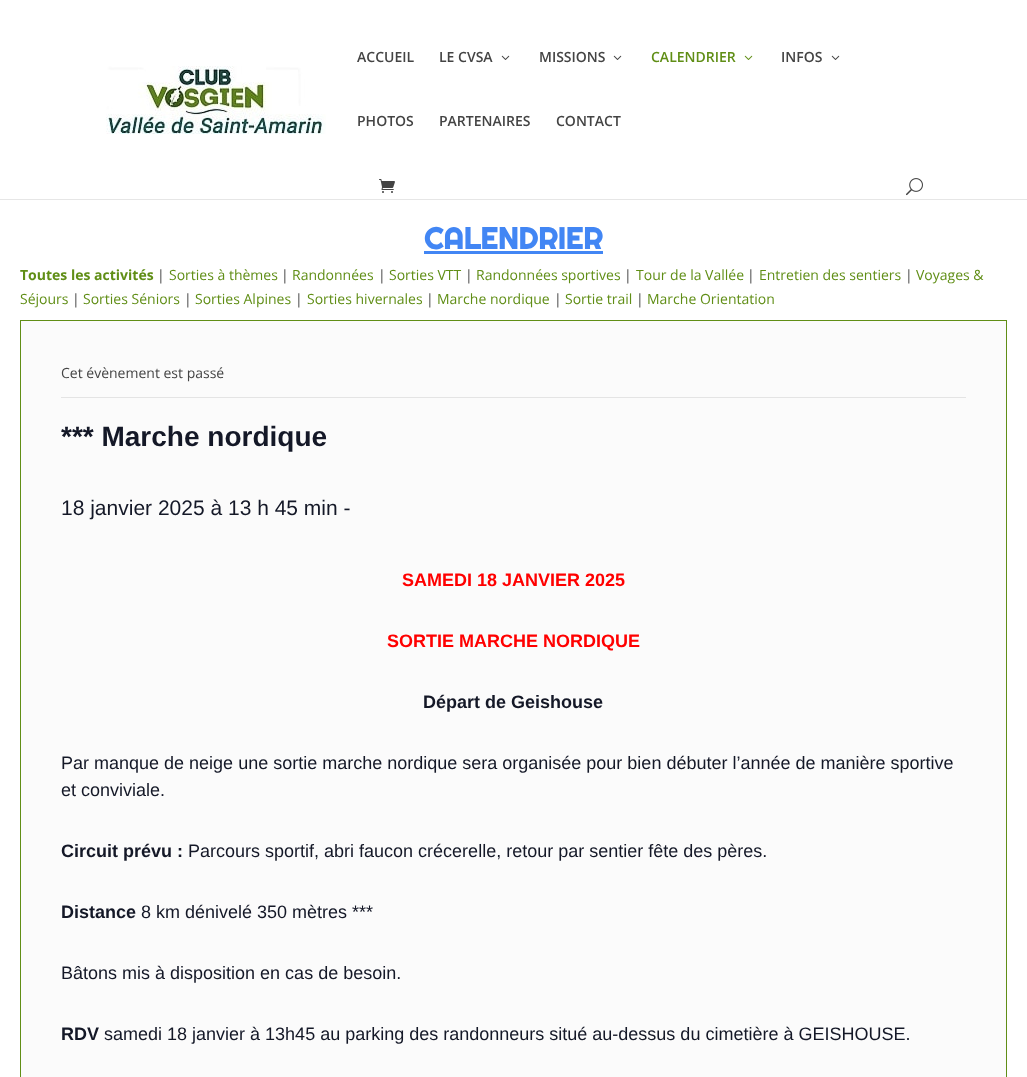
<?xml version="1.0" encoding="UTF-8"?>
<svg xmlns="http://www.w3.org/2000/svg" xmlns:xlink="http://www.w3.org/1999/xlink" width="1027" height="1077">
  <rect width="100%" height="100%" fill="#ffffff" />
  <rect y="199" width="1027" height="1" fill="#e6e6e6" />
  <image x="106" y="66" width="220" height="68" xlink:href="image1.png" />
  <image x="501" y="55" width="9" height="5" xlink:href="image2.png" />
  <image x="613" y="55" width="9" height="5" xlink:href="image2.png" />
  <image x="744" y="55" width="9" height="5" xlink:href="image3.png" />
  <image x="831" y="55" width="9" height="5" xlink:href="image2.png" />
  <image x="379" y="179" width="16" height="14" xlink:href="image4.png" />
  <image x="906" y="178" width="17" height="18" xlink:href="image5.png" />
  <rect x="424" y="251" width="179" height="3" fill="#4286f4" />
  <rect x="20.5" y="320.5" width="986" height="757" fill="#fbfbfb" stroke="#608e16" />
  <rect x="61" y="397" width="905" height="1" fill="#e4e4e4" />
  <text x="357" y="62" style="font-family: Open Sans; font-size: 14px; font-weight: 600; fill: #444444">ACCUEIL</text>
  <text x="439" y="62" style="font-family: Open Sans; font-size: 14px; font-weight: 600; fill: #444444">LE CVSA</text>
  <text x="539" y="62" style="font-family: Open Sans; font-size: 14px; font-weight: 600; fill: #444444">MISSIONS</text>
  <text x="651" y="62" style="font-family: Open Sans; font-size: 14px; font-weight: 600; fill: #608e16">CALENDRIER</text>
  <text x="781" y="62" style="font-family: Open Sans; font-size: 14px; font-weight: 600; fill: #444444">INFOS</text>
  <text x="357" y="126" style="font-family: Open Sans; font-size: 14px; font-weight: 600; fill: #444444">PHOTOS</text>
  <text x="439" y="126" style="font-family: Open Sans; font-size: 14px; font-weight: 600; fill: #444444">PARTENAIRES</text>
  <text x="556" y="126" style="font-family: Open Sans; font-size: 14px; font-weight: 600; fill: #444444">CONTACT</text>
  <text x="424" y="249" style="font-family: Righteous; font-size: 30px; font-weight: bold; fill: #4286f4">CALENDRIER</text>
  <text x="20" y="280" style="font-family: Open Sans; font-size: 14px; font-weight: bold; fill: #608e16">Toutes les activités</text>
  <text x="157" y="280" style="font-family: Open Sans; font-size: 14px; fill: #444444">|</text>
  <text x="169" y="280" style="font-family: Open Sans; font-size: 14px; fill: #608e16">Sorties à thèmes</text>
  <text x="281" y="280" style="font-family: Open Sans; font-size: 14px; fill: #444444">|</text>
  <text x="292" y="280" style="font-family: Open Sans; font-size: 14px; fill: #608e16">Randonnées</text>
  <text x="378" y="280" style="font-family: Open Sans; font-size: 14px; fill: #444444">|</text>
  <text x="389" y="280" style="font-family: Open Sans; font-size: 14px; fill: #608e16">Sorties VTT</text>
  <text x="465" y="280" style="font-family: Open Sans; font-size: 14px; fill: #444444">|</text>
  <text x="476" y="280" style="font-family: Open Sans; font-size: 14px; fill: #608e16">Randonnées sportives</text>
  <text x="624" y="280" style="font-family: Open Sans; font-size: 14px; fill: #444444">|</text>
  <text x="636" y="280" style="font-family: Open Sans; font-size: 14px; fill: #608e16">Tour de la Vallée</text>
  <text x="747" y="280" style="font-family: Open Sans; font-size: 14px; fill: #444444">|</text>
  <text x="759" y="280" style="font-family: Open Sans; font-size: 14px; fill: #608e16">Entretien des sentiers</text>
  <text x="905" y="280" style="font-family: Open Sans; font-size: 14px; fill: #444444">|</text>
  <text x="916" y="280" style="font-family: Open Sans; font-size: 14px; fill: #608e16">Voyages &amp;</text>
  <text x="20" y="304" style="font-family: Open Sans; font-size: 14px; fill: #608e16">Séjours</text>
  <text x="72" y="304" style="font-family: Open Sans; font-size: 14px; fill: #444444">|</text>
  <text x="83" y="304" style="font-family: Open Sans; font-size: 14px; fill: #608e16">Sorties Séniors</text>
  <text x="184" y="304" style="font-family: Open Sans; font-size: 14px; fill: #444444">|</text>
  <text x="195" y="304" style="font-family: Open Sans; font-size: 14px; fill: #608e16">Sorties Alpines</text>
  <text x="295" y="304" style="font-family: Open Sans; font-size: 14px; fill: #444444">|</text>
  <text x="307" y="304" style="font-family: Open Sans; font-size: 14px; fill: #608e16">Sorties hivernales</text>
  <text x="426" y="304" style="font-family: Open Sans; font-size: 14px; fill: #444444">|</text>
  <text x="437" y="304" style="font-family: Open Sans; font-size: 14px; fill: #608e16">Marche nordique</text>
  <text x="554" y="304" style="font-family: Open Sans; font-size: 14px; fill: #444444">|</text>
  <text x="565" y="304" style="font-family: Open Sans; font-size: 14px; fill: #608e16">Sortie trail</text>
  <text x="636" y="304" style="font-family: Open Sans; font-size: 14px; fill: #444444">|</text>
  <text x="647" y="304" style="font-family: Open Sans; font-size: 14px; fill: #608e16">Marche Orientation</text>
  <text x="61" y="378" style="font-family: Open Sans; font-size: 14px; fill: #444444">Cet évènement est passé</text>
  <text x="61" y="446" style="font-family: Liberation Sans; font-size: 28px; font-weight: bold; fill: #141827">*** Marche nordique</text>
  <text x="61" y="515" style="font-family: Liberation Sans; font-size: 21px; fill: #141827">18 janvier 2025 à 13 h 45 min -</text>
  <text x="402" y="586" style="font-family: Liberation Sans; font-size: 18px; font-weight: bold; fill: #ff0000">SAMEDI 18 JANVIER 2025</text>
  <text x="387" y="647" style="font-family: Liberation Sans; font-size: 18px; font-weight: bold; fill: #ff0000">SORTIE MARCHE NORDIQUE</text>
  <text x="423" y="708" style="font-family: Liberation Sans; font-size: 18px; font-weight: bold; fill: #141827">Départ de Geishouse</text>
  <text x="61" y="769" style="font-family: Liberation Sans; font-size: 18px; fill: #141827">Par manque de neige une sortie marche nordique sera organisée pour bien débuter l’année de manière sportive</text>
  <text x="61" y="796" style="font-family: Liberation Sans; font-size: 18px; fill: #141827">et conviviale.</text>
  <text x="61" y="857" style="font-family: Liberation Sans; font-size: 18px; font-weight: bold; fill: #141827">Circuit prévu :</text>
  <text x="188" y="857" style="font-family: Liberation Sans; font-size: 18px; fill: #141827">Parcours sportif, abri faucon crécerelle, retour par sentier fête des pères.</text>
  <text x="61" y="918" style="font-family: Liberation Sans; font-size: 18px; font-weight: bold; fill: #141827">Distance</text>
  <text x="141" y="918" style="font-family: Liberation Sans; font-size: 18px; fill: #141827">8 km dénivelé 350 mètres ***</text>
  <text x="61" y="979" style="font-family: Liberation Sans; font-size: 18px; fill: #141827">Bâtons mis à disposition en cas de besoin.</text>
  <text x="61" y="1040" style="font-family: Liberation Sans; font-size: 18px; font-weight: bold; fill: #141827">RDV</text>
  <text x="104" y="1040" style="font-family: Liberation Sans; font-size: 18px; fill: #141827">samedi 18 janvier à 13h45 au parking des randonneurs situé au-dessus du cimetière à GEISHOUSE.</text>
</svg>
